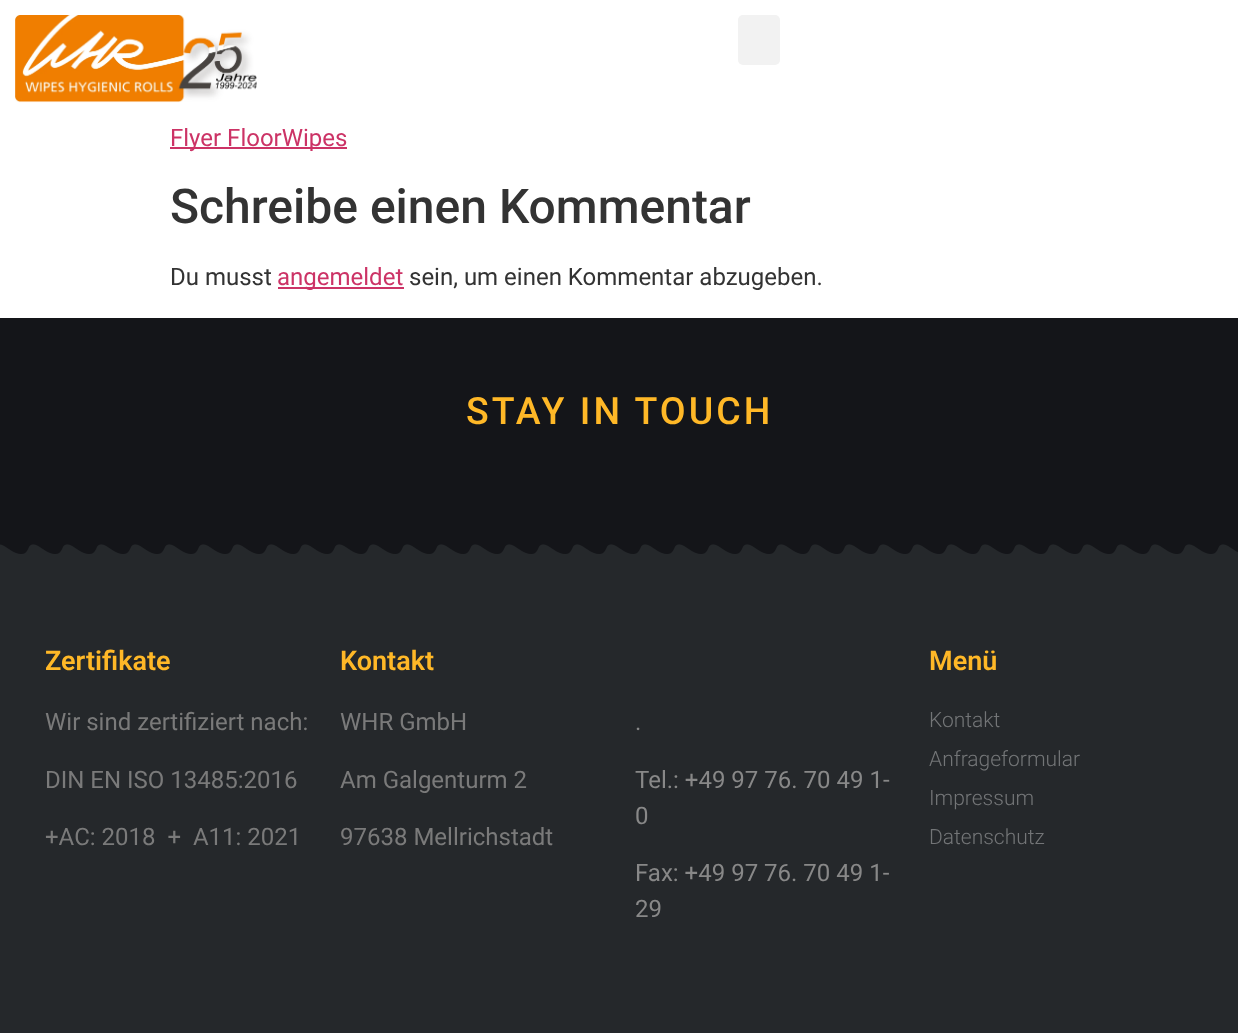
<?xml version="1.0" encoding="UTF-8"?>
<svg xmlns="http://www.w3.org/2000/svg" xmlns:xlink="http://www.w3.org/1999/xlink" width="1238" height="1033">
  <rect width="100%" height="100%" fill="#ffffff" />
  <image x="15" y="15" width="242" height="88" xlink:href="image1.png" />
  <rect x="738" y="15" width="42" height="50" rx="5" fill="#f2f2f2" />
  <rect x="170" y="147" width="177" height="2" fill="#cc3366" />
  <rect x="278" y="287" width="126" height="2" fill="#cc3366" />
  <rect y="318" width="1238" height="225" fill="#141519" />
  <rect y="544" width="1238" height="489" fill="#25282b" />
  <image x="0" y="543" width="1238" height="11" xlink:href="image2.png" />
  <text x="170" y="146" style="font-family: Roboto; font-size: 24px; fill: #cc3366">Flyer FloorWipes</text>
  <text x="170" y="223" style="font-family: Roboto; font-size: 48px; font-weight: 500; fill: #333333">Schreibe einen Kommentar</text>
  <text x="170" y="285" style="font-family: Roboto; font-size: 24px; fill: #333333">Du musst</text>
  <text x="277" y="285" style="font-family: Roboto; font-size: 24px; fill: #cc3366">angemeldet</text>
  <text x="409" y="285" style="font-family: Roboto; font-size: 24px; fill: #333333">sein, um einen Kommentar abzugeben.</text>
  <text x="466" y="424" style="font-family: Roboto; font-size: 37.5px; font-weight: 500; letter-spacing: 3px; fill: #ffb827">STAY IN TOUCH</text>
  <text x="45" y="670" style="font-family: Roboto; font-size: 27px; font-weight: 600; fill: #ffb827">Zertifikate</text>
  <text x="45" y="730" style="font-family: Roboto; font-size: 24px; fill: #7a7a7a">Wir sind zertifiziert nach:</text>
  <text x="45" y="788" style="font-family: Roboto; font-size: 24px; fill: #7a7a7a">DIN EN ISO 13485:2016</text>
  <text x="45" y="845" style="font-family: Roboto; font-size: 24px; fill: #7a7a7a" xml:space="preserve">+AC: 2018  +  A11: 2021</text>
  <text x="340" y="670" style="font-family: Roboto; font-size: 27px; font-weight: 600; fill: #ffb827">Kontakt</text>
  <text x="340" y="730" style="font-family: Roboto; font-size: 24px; fill: #7a7a7a">WHR GmbH</text>
  <text x="340" y="788" style="font-family: Roboto; font-size: 24px; fill: #7a7a7a">Am Galgenturm 2</text>
  <text x="340" y="845" style="font-family: Roboto; font-size: 24px; fill: #7a7a7a">97638 Mellrichstadt</text>
  <text x="635" y="730" style="font-family: Roboto; font-size: 24px; fill: #888888">.</text>
  <text x="635" y="788" style="font-family: Roboto; font-size: 24px; fill: #888888">Tel.: +49 97 76. 70 49 1-</text>
  <text x="635" y="824" style="font-family: Roboto; font-size: 24px; fill: #888888">0</text>
  <text x="635" y="881" style="font-family: Roboto; font-size: 24px; fill: #888888">Fax: +49 97 76. 70 49 1-</text>
  <text x="635" y="917" style="font-family: Roboto; font-size: 24px; fill: #888888">29</text>
  <text x="929" y="670" style="font-family: Roboto; font-size: 27px; font-weight: 600; fill: #ffb827">Menü</text>
  <text x="929" y="727" style="font-family: Roboto; font-size: 21px; font-weight: 300; fill: #737577">Kontakt</text>
  <text x="929" y="766" style="font-family: Roboto; font-size: 21px; font-weight: 300; fill: #737577">Anfrageformular</text>
  <text x="929" y="805" style="font-family: Roboto; font-size: 21px; font-weight: 300; fill: #737577">Impressum</text>
  <text x="929" y="844" style="font-family: Roboto; font-size: 21px; font-weight: 300; fill: #737577">Datenschutz</text>
</svg>
